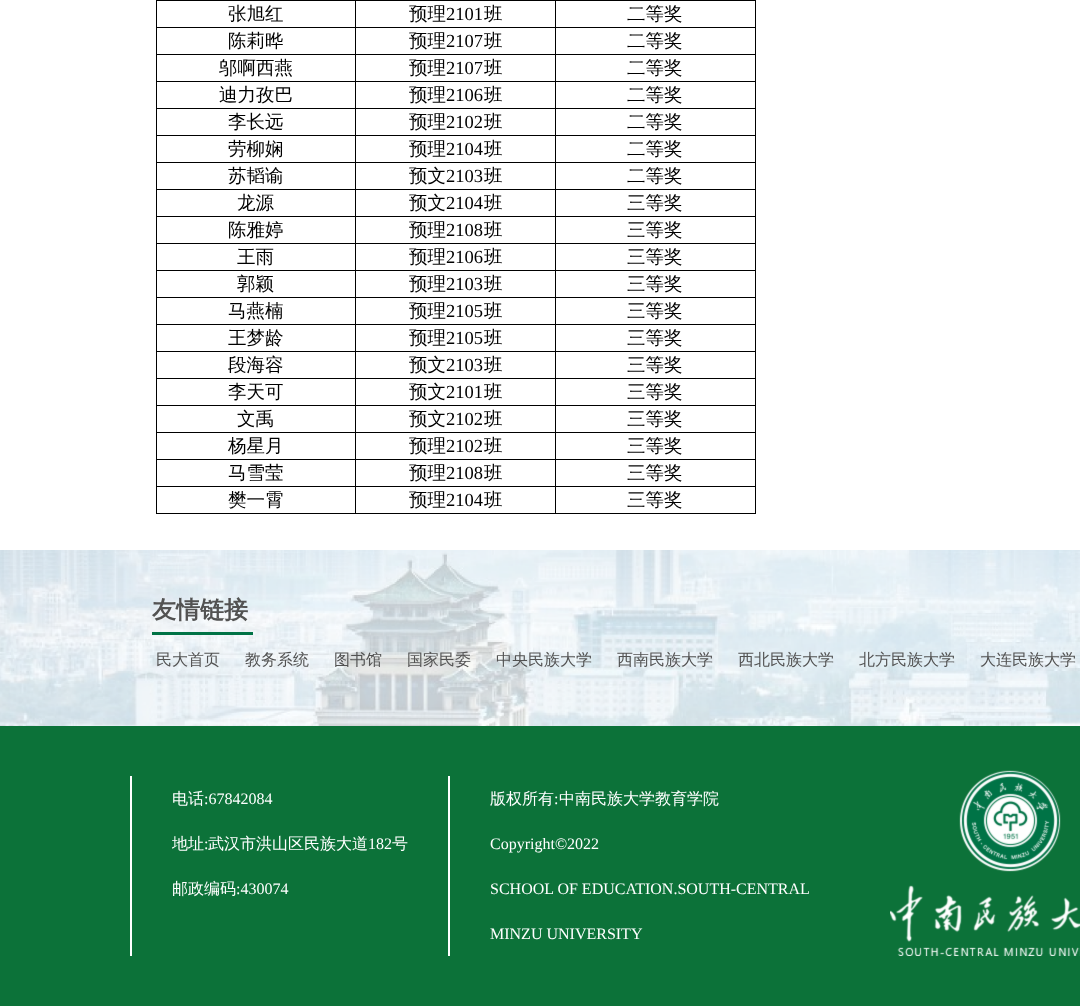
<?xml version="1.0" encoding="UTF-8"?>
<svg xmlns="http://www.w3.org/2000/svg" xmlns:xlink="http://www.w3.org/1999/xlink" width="1080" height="1006">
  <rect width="100%" height="100%" fill="#ffffff" />
  <rect x="755" width="1" height="514" fill="#000000" />
  <rect x="555" y="513" width="201" height="1" fill="#000000" />
  <rect x="555" y="486" width="1" height="28" fill="#000000" />
  <rect x="555" y="486" width="201" height="1" fill="#000000" />
  <rect x="555" y="459" width="1" height="28" fill="#000000" />
  <rect x="555" y="459" width="201" height="1" fill="#000000" />
  <rect x="555" y="432" width="1" height="28" fill="#000000" />
  <rect x="555" y="432" width="201" height="1" fill="#000000" />
  <rect x="555" y="405" width="1" height="28" fill="#000000" />
  <rect x="555" y="405" width="201" height="1" fill="#000000" />
  <rect x="555" y="378" width="1" height="28" fill="#000000" />
  <rect x="555" y="378" width="201" height="1" fill="#000000" />
  <rect x="555" y="351" width="1" height="28" fill="#000000" />
  <rect x="555" y="351" width="201" height="1" fill="#000000" />
  <rect x="555" y="324" width="1" height="28" fill="#000000" />
  <rect x="555" y="324" width="201" height="1" fill="#000000" />
  <rect x="555" y="297" width="1" height="28" fill="#000000" />
  <rect x="555" y="297" width="201" height="1" fill="#000000" />
  <rect x="555" y="270" width="1" height="28" fill="#000000" />
  <rect x="555" y="270" width="201" height="1" fill="#000000" />
  <rect x="555" y="243" width="1" height="28" fill="#000000" />
  <rect x="555" y="243" width="201" height="1" fill="#000000" />
  <rect x="555" y="216" width="1" height="28" fill="#000000" />
  <rect x="555" y="216" width="201" height="1" fill="#000000" />
  <rect x="555" y="189" width="1" height="28" fill="#000000" />
  <rect x="555" y="189" width="201" height="1" fill="#000000" />
  <rect x="555" y="162" width="1" height="28" fill="#000000" />
  <rect x="555" y="162" width="201" height="1" fill="#000000" />
  <rect x="555" y="135" width="1" height="28" fill="#000000" />
  <rect x="555" y="135" width="201" height="1" fill="#000000" />
  <rect x="555" y="108" width="1" height="28" fill="#000000" />
  <rect x="555" y="108" width="201" height="1" fill="#000000" />
  <rect x="555" y="81" width="1" height="28" fill="#000000" />
  <rect x="555" y="81" width="201" height="1" fill="#000000" />
  <rect x="555" y="54" width="1" height="28" fill="#000000" />
  <rect x="555" y="54" width="201" height="1" fill="#000000" />
  <rect x="555" y="27" width="1" height="28" fill="#000000" />
  <rect x="555" y="27" width="201" height="1" fill="#000000" />
  <rect x="555" width="1" height="28" fill="#000000" />
  <rect x="355" y="513" width="201" height="1" fill="#000000" />
  <rect x="355" y="486" width="1" height="28" fill="#000000" />
  <rect x="355" y="486" width="201" height="1" fill="#000000" />
  <rect x="355" y="459" width="1" height="28" fill="#000000" />
  <rect x="355" y="459" width="201" height="1" fill="#000000" />
  <rect x="355" y="432" width="1" height="28" fill="#000000" />
  <rect x="355" y="432" width="201" height="1" fill="#000000" />
  <rect x="355" y="405" width="1" height="28" fill="#000000" />
  <rect x="355" y="405" width="201" height="1" fill="#000000" />
  <rect x="355" y="378" width="1" height="28" fill="#000000" />
  <rect x="355" y="378" width="201" height="1" fill="#000000" />
  <rect x="355" y="351" width="1" height="28" fill="#000000" />
  <rect x="355" y="351" width="201" height="1" fill="#000000" />
  <rect x="355" y="324" width="1" height="28" fill="#000000" />
  <rect x="355" y="324" width="201" height="1" fill="#000000" />
  <rect x="355" y="297" width="1" height="28" fill="#000000" />
  <rect x="355" y="297" width="201" height="1" fill="#000000" />
  <rect x="355" y="270" width="1" height="28" fill="#000000" />
  <rect x="355" y="270" width="201" height="1" fill="#000000" />
  <rect x="355" y="243" width="1" height="28" fill="#000000" />
  <rect x="355" y="243" width="201" height="1" fill="#000000" />
  <rect x="355" y="216" width="1" height="28" fill="#000000" />
  <rect x="355" y="216" width="201" height="1" fill="#000000" />
  <rect x="355" y="189" width="1" height="28" fill="#000000" />
  <rect x="355" y="189" width="201" height="1" fill="#000000" />
  <rect x="355" y="162" width="1" height="28" fill="#000000" />
  <rect x="355" y="162" width="201" height="1" fill="#000000" />
  <rect x="355" y="135" width="1" height="28" fill="#000000" />
  <rect x="355" y="135" width="201" height="1" fill="#000000" />
  <rect x="355" y="108" width="1" height="28" fill="#000000" />
  <rect x="355" y="108" width="201" height="1" fill="#000000" />
  <rect x="355" y="81" width="1" height="28" fill="#000000" />
  <rect x="355" y="81" width="201" height="1" fill="#000000" />
  <rect x="355" y="54" width="1" height="28" fill="#000000" />
  <rect x="355" y="54" width="201" height="1" fill="#000000" />
  <rect x="355" y="27" width="1" height="28" fill="#000000" />
  <rect x="355" y="27" width="201" height="1" fill="#000000" />
  <rect x="355" width="1" height="28" fill="#000000" />
  <rect x="156" y="513" width="200" height="1" fill="#000000" />
  <rect x="156" y="486" width="1" height="28" fill="#000000" />
  <rect x="156" y="486" width="200" height="1" fill="#000000" />
  <rect x="156" y="459" width="1" height="28" fill="#000000" />
  <rect x="156" y="459" width="200" height="1" fill="#000000" />
  <rect x="156" y="432" width="1" height="28" fill="#000000" />
  <rect x="156" y="432" width="200" height="1" fill="#000000" />
  <rect x="156" y="405" width="1" height="28" fill="#000000" />
  <rect x="156" y="405" width="200" height="1" fill="#000000" />
  <rect x="156" y="378" width="1" height="28" fill="#000000" />
  <rect x="156" y="378" width="200" height="1" fill="#000000" />
  <rect x="156" y="351" width="1" height="28" fill="#000000" />
  <rect x="156" y="351" width="200" height="1" fill="#000000" />
  <rect x="156" y="324" width="1" height="28" fill="#000000" />
  <rect x="156" y="324" width="200" height="1" fill="#000000" />
  <rect x="156" y="297" width="1" height="28" fill="#000000" />
  <rect x="156" y="297" width="200" height="1" fill="#000000" />
  <rect x="156" y="270" width="1" height="28" fill="#000000" />
  <rect x="156" y="270" width="200" height="1" fill="#000000" />
  <rect x="156" y="243" width="1" height="28" fill="#000000" />
  <rect x="156" y="243" width="200" height="1" fill="#000000" />
  <rect x="156" y="216" width="1" height="28" fill="#000000" />
  <rect x="156" y="216" width="200" height="1" fill="#000000" />
  <rect x="156" y="189" width="1" height="28" fill="#000000" />
  <rect x="156" y="189" width="200" height="1" fill="#000000" />
  <rect x="156" y="162" width="1" height="28" fill="#000000" />
  <rect x="156" y="162" width="200" height="1" fill="#000000" />
  <rect x="156" y="135" width="1" height="28" fill="#000000" />
  <rect x="156" y="135" width="200" height="1" fill="#000000" />
  <rect x="156" y="108" width="1" height="28" fill="#000000" />
  <rect x="156" y="108" width="200" height="1" fill="#000000" />
  <rect x="156" y="81" width="1" height="28" fill="#000000" />
  <rect x="156" y="81" width="200" height="1" fill="#000000" />
  <rect x="156" y="54" width="1" height="28" fill="#000000" />
  <rect x="156" y="54" width="200" height="1" fill="#000000" />
  <rect x="156" y="27" width="1" height="28" fill="#000000" />
  <rect x="156" y="27" width="200" height="1" fill="#000000" />
  <rect x="156" width="1" height="28" fill="#000000" />
  <rect x="156" width="600" height="1" fill="#000000" />
  <image x="0" y="550" width="1080" height="176" xlink:href="image1.png" />
  <rect x="152" y="632" width="101" height="3" fill="#007346" />
  <rect y="726" width="1080" height="280" fill="#0c7239" />
  <rect x="130" y="776" width="2" height="180" fill="#ffffff" />
  <rect x="448" y="776" width="2" height="180" fill="#ffffff" />
  <image x="890" y="770" width="190" height="186" xlink:href="image2.png" />
  <text x="228" y="20" style="font-family: WenQuanYi Zen Hei; font-size: 18.5px; font-weight: 500; fill: #000000">张旭红</text>
  <text x="409" y="20" style="font-family: WenQuanYi Zen Hei; font-size: 18.5px; font-weight: 500; fill: #000000">预理</text>
  <text x="446" y="20" style="font-family: Liberation Serif; font-size: 18.5px; fill: #000000">2101</text>
  <text x="484" y="20" style="font-family: WenQuanYi Zen Hei; font-size: 18.5px; font-weight: 500; fill: #000000">班</text>
  <text x="627" y="20" style="font-family: WenQuanYi Zen Hei; font-size: 18.5px; font-weight: 500; fill: #000000">二等奖</text>
  <text x="228" y="47" style="font-family: WenQuanYi Zen Hei; font-size: 18.5px; font-weight: 500; fill: #000000">陈莉晔</text>
  <text x="409" y="47" style="font-family: WenQuanYi Zen Hei; font-size: 18.5px; font-weight: 500; fill: #000000">预理</text>
  <text x="446" y="47" style="font-family: Liberation Serif; font-size: 18.5px; fill: #000000">2107</text>
  <text x="484" y="47" style="font-family: WenQuanYi Zen Hei; font-size: 18.5px; font-weight: 500; fill: #000000">班</text>
  <text x="627" y="47" style="font-family: WenQuanYi Zen Hei; font-size: 18.5px; font-weight: 500; fill: #000000">二等奖</text>
  <text x="219" y="74" style="font-family: WenQuanYi Zen Hei; font-size: 18.5px; font-weight: 500; fill: #000000">邬啊西燕</text>
  <text x="409" y="74" style="font-family: WenQuanYi Zen Hei; font-size: 18.5px; font-weight: 500; fill: #000000">预理</text>
  <text x="446" y="74" style="font-family: Liberation Serif; font-size: 18.5px; fill: #000000">2107</text>
  <text x="484" y="74" style="font-family: WenQuanYi Zen Hei; font-size: 18.5px; font-weight: 500; fill: #000000">班</text>
  <text x="627" y="74" style="font-family: WenQuanYi Zen Hei; font-size: 18.5px; font-weight: 500; fill: #000000">二等奖</text>
  <text x="219" y="101" style="font-family: WenQuanYi Zen Hei; font-size: 18.5px; font-weight: 500; fill: #000000">迪力孜巴</text>
  <text x="409" y="101" style="font-family: WenQuanYi Zen Hei; font-size: 18.5px; font-weight: 500; fill: #000000">预理</text>
  <text x="446" y="101" style="font-family: Liberation Serif; font-size: 18.5px; fill: #000000">2106</text>
  <text x="484" y="101" style="font-family: WenQuanYi Zen Hei; font-size: 18.5px; font-weight: 500; fill: #000000">班</text>
  <text x="627" y="101" style="font-family: WenQuanYi Zen Hei; font-size: 18.5px; font-weight: 500; fill: #000000">二等奖</text>
  <text x="228" y="128" style="font-family: WenQuanYi Zen Hei; font-size: 18.5px; font-weight: 500; fill: #000000">李长远</text>
  <text x="409" y="128" style="font-family: WenQuanYi Zen Hei; font-size: 18.5px; font-weight: 500; fill: #000000">预理</text>
  <text x="446" y="128" style="font-family: Liberation Serif; font-size: 18.5px; fill: #000000">2102</text>
  <text x="484" y="128" style="font-family: WenQuanYi Zen Hei; font-size: 18.5px; font-weight: 500; fill: #000000">班</text>
  <text x="627" y="128" style="font-family: WenQuanYi Zen Hei; font-size: 18.5px; font-weight: 500; fill: #000000">二等奖</text>
  <text x="228" y="155" style="font-family: WenQuanYi Zen Hei; font-size: 18.5px; font-weight: 500; fill: #000000">劳柳娴</text>
  <text x="409" y="155" style="font-family: WenQuanYi Zen Hei; font-size: 18.5px; font-weight: 500; fill: #000000">预理</text>
  <text x="446" y="155" style="font-family: Liberation Serif; font-size: 18.5px; fill: #000000">2104</text>
  <text x="484" y="155" style="font-family: WenQuanYi Zen Hei; font-size: 18.5px; font-weight: 500; fill: #000000">班</text>
  <text x="627" y="155" style="font-family: WenQuanYi Zen Hei; font-size: 18.5px; font-weight: 500; fill: #000000">二等奖</text>
  <text x="228" y="182" style="font-family: WenQuanYi Zen Hei; font-size: 18.5px; font-weight: 500; fill: #000000">苏韬谕</text>
  <text x="409" y="182" style="font-family: WenQuanYi Zen Hei; font-size: 18.5px; font-weight: 500; fill: #000000">预文</text>
  <text x="446" y="182" style="font-family: Liberation Serif; font-size: 18.5px; fill: #000000">2103</text>
  <text x="484" y="182" style="font-family: WenQuanYi Zen Hei; font-size: 18.5px; font-weight: 500; fill: #000000">班</text>
  <text x="627" y="182" style="font-family: WenQuanYi Zen Hei; font-size: 18.5px; font-weight: 500; fill: #000000">二等奖</text>
  <text x="237" y="209" style="font-family: WenQuanYi Zen Hei; font-size: 18.5px; font-weight: 500; fill: #000000">龙源</text>
  <text x="409" y="209" style="font-family: WenQuanYi Zen Hei; font-size: 18.5px; font-weight: 500; fill: #000000">预文</text>
  <text x="446" y="209" style="font-family: Liberation Serif; font-size: 18.5px; fill: #000000">2104</text>
  <text x="484" y="209" style="font-family: WenQuanYi Zen Hei; font-size: 18.5px; font-weight: 500; fill: #000000">班</text>
  <text x="627" y="209" style="font-family: WenQuanYi Zen Hei; font-size: 18.5px; font-weight: 500; fill: #000000">三等奖</text>
  <text x="228" y="236" style="font-family: WenQuanYi Zen Hei; font-size: 18.5px; font-weight: 500; fill: #000000">陈雅婷</text>
  <text x="409" y="236" style="font-family: WenQuanYi Zen Hei; font-size: 18.5px; font-weight: 500; fill: #000000">预理</text>
  <text x="446" y="236" style="font-family: Liberation Serif; font-size: 18.5px; fill: #000000">2108</text>
  <text x="484" y="236" style="font-family: WenQuanYi Zen Hei; font-size: 18.5px; font-weight: 500; fill: #000000">班</text>
  <text x="627" y="236" style="font-family: WenQuanYi Zen Hei; font-size: 18.5px; font-weight: 500; fill: #000000">三等奖</text>
  <text x="237" y="263" style="font-family: WenQuanYi Zen Hei; font-size: 18.5px; font-weight: 500; fill: #000000">王雨</text>
  <text x="409" y="263" style="font-family: WenQuanYi Zen Hei; font-size: 18.5px; font-weight: 500; fill: #000000">预理</text>
  <text x="446" y="263" style="font-family: Liberation Serif; font-size: 18.5px; fill: #000000">2106</text>
  <text x="484" y="263" style="font-family: WenQuanYi Zen Hei; font-size: 18.5px; font-weight: 500; fill: #000000">班</text>
  <text x="627" y="263" style="font-family: WenQuanYi Zen Hei; font-size: 18.5px; font-weight: 500; fill: #000000">三等奖</text>
  <text x="237" y="290" style="font-family: WenQuanYi Zen Hei; font-size: 18.5px; font-weight: 500; fill: #000000">郭颖</text>
  <text x="409" y="290" style="font-family: WenQuanYi Zen Hei; font-size: 18.5px; font-weight: 500; fill: #000000">预理</text>
  <text x="446" y="290" style="font-family: Liberation Serif; font-size: 18.5px; fill: #000000">2103</text>
  <text x="484" y="290" style="font-family: WenQuanYi Zen Hei; font-size: 18.5px; font-weight: 500; fill: #000000">班</text>
  <text x="627" y="290" style="font-family: WenQuanYi Zen Hei; font-size: 18.5px; font-weight: 500; fill: #000000">三等奖</text>
  <text x="228" y="317" style="font-family: WenQuanYi Zen Hei; font-size: 18.5px; font-weight: 500; fill: #000000">马燕楠</text>
  <text x="409" y="317" style="font-family: WenQuanYi Zen Hei; font-size: 18.5px; font-weight: 500; fill: #000000">预理</text>
  <text x="446" y="317" style="font-family: Liberation Serif; font-size: 18.5px; fill: #000000">2105</text>
  <text x="484" y="317" style="font-family: WenQuanYi Zen Hei; font-size: 18.5px; font-weight: 500; fill: #000000">班</text>
  <text x="627" y="317" style="font-family: WenQuanYi Zen Hei; font-size: 18.5px; font-weight: 500; fill: #000000">三等奖</text>
  <text x="228" y="344" style="font-family: WenQuanYi Zen Hei; font-size: 18.5px; font-weight: 500; fill: #000000">王梦龄</text>
  <text x="409" y="344" style="font-family: WenQuanYi Zen Hei; font-size: 18.5px; font-weight: 500; fill: #000000">预理</text>
  <text x="446" y="344" style="font-family: Liberation Serif; font-size: 18.5px; fill: #000000">2105</text>
  <text x="484" y="344" style="font-family: WenQuanYi Zen Hei; font-size: 18.5px; font-weight: 500; fill: #000000">班</text>
  <text x="627" y="344" style="font-family: WenQuanYi Zen Hei; font-size: 18.5px; font-weight: 500; fill: #000000">三等奖</text>
  <text x="228" y="371" style="font-family: WenQuanYi Zen Hei; font-size: 18.5px; font-weight: 500; fill: #000000">段海容</text>
  <text x="409" y="371" style="font-family: WenQuanYi Zen Hei; font-size: 18.5px; font-weight: 500; fill: #000000">预文</text>
  <text x="446" y="371" style="font-family: Liberation Serif; font-size: 18.5px; fill: #000000">2103</text>
  <text x="484" y="371" style="font-family: WenQuanYi Zen Hei; font-size: 18.5px; font-weight: 500; fill: #000000">班</text>
  <text x="627" y="371" style="font-family: WenQuanYi Zen Hei; font-size: 18.5px; font-weight: 500; fill: #000000">三等奖</text>
  <text x="228" y="398" style="font-family: WenQuanYi Zen Hei; font-size: 18.5px; font-weight: 500; fill: #000000">李天可</text>
  <text x="409" y="398" style="font-family: WenQuanYi Zen Hei; font-size: 18.5px; font-weight: 500; fill: #000000">预文</text>
  <text x="446" y="398" style="font-family: Liberation Serif; font-size: 18.5px; fill: #000000">2101</text>
  <text x="484" y="398" style="font-family: WenQuanYi Zen Hei; font-size: 18.5px; font-weight: 500; fill: #000000">班</text>
  <text x="627" y="398" style="font-family: WenQuanYi Zen Hei; font-size: 18.5px; font-weight: 500; fill: #000000">三等奖</text>
  <text x="237" y="425" style="font-family: WenQuanYi Zen Hei; font-size: 18.5px; font-weight: 500; fill: #000000">文禹</text>
  <text x="409" y="425" style="font-family: WenQuanYi Zen Hei; font-size: 18.5px; font-weight: 500; fill: #000000">预文</text>
  <text x="446" y="425" style="font-family: Liberation Serif; font-size: 18.5px; fill: #000000">2102</text>
  <text x="484" y="425" style="font-family: WenQuanYi Zen Hei; font-size: 18.5px; font-weight: 500; fill: #000000">班</text>
  <text x="627" y="425" style="font-family: WenQuanYi Zen Hei; font-size: 18.5px; font-weight: 500; fill: #000000">三等奖</text>
  <text x="228" y="452" style="font-family: WenQuanYi Zen Hei; font-size: 18.5px; font-weight: 500; fill: #000000">杨星月</text>
  <text x="409" y="452" style="font-family: WenQuanYi Zen Hei; font-size: 18.5px; font-weight: 500; fill: #000000">预理</text>
  <text x="446" y="452" style="font-family: Liberation Serif; font-size: 18.5px; fill: #000000">2102</text>
  <text x="484" y="452" style="font-family: WenQuanYi Zen Hei; font-size: 18.5px; font-weight: 500; fill: #000000">班</text>
  <text x="627" y="452" style="font-family: WenQuanYi Zen Hei; font-size: 18.5px; font-weight: 500; fill: #000000">三等奖</text>
  <text x="228" y="479" style="font-family: WenQuanYi Zen Hei; font-size: 18.5px; font-weight: 500; fill: #000000">马雪莹</text>
  <text x="409" y="479" style="font-family: WenQuanYi Zen Hei; font-size: 18.5px; font-weight: 500; fill: #000000">预理</text>
  <text x="446" y="479" style="font-family: Liberation Serif; font-size: 18.5px; fill: #000000">2108</text>
  <text x="484" y="479" style="font-family: WenQuanYi Zen Hei; font-size: 18.5px; font-weight: 500; fill: #000000">班</text>
  <text x="627" y="479" style="font-family: WenQuanYi Zen Hei; font-size: 18.5px; font-weight: 500; fill: #000000">三等奖</text>
  <text x="228" y="506" style="font-family: WenQuanYi Zen Hei; font-size: 18.5px; font-weight: 500; fill: #000000">樊一霄</text>
  <text x="409" y="506" style="font-family: WenQuanYi Zen Hei; font-size: 18.5px; font-weight: 500; fill: #000000">预理</text>
  <text x="446" y="506" style="font-family: Liberation Serif; font-size: 18.5px; fill: #000000">2104</text>
  <text x="484" y="506" style="font-family: WenQuanYi Zen Hei; font-size: 18.5px; font-weight: 500; fill: #000000">班</text>
  <text x="627" y="506" style="font-family: WenQuanYi Zen Hei; font-size: 18.5px; font-weight: 500; fill: #000000">三等奖</text>
  <text x="152" y="618" style="font-family: WenQuanYi Zen Hei; font-size: 24px; font-weight: bold; fill: #525252">友情链接</text>
  <text x="156" y="665" style="font-family: WenQuanYi Zen Hei; font-size: 16px; font-weight: 500; fill: #525252">民大首页</text>
  <text x="245" y="665" style="font-family: WenQuanYi Zen Hei; font-size: 16px; font-weight: 500; fill: #525252">教务系统</text>
  <text x="334" y="665" style="font-family: WenQuanYi Zen Hei; font-size: 16px; font-weight: 500; fill: #525252">图书馆</text>
  <text x="407" y="665" style="font-family: WenQuanYi Zen Hei; font-size: 16px; font-weight: 500; fill: #525252">国家民委</text>
  <text x="496" y="665" style="font-family: WenQuanYi Zen Hei; font-size: 16px; font-weight: 500; fill: #525252">中央民族大学</text>
  <text x="617" y="665" style="font-family: WenQuanYi Zen Hei; font-size: 16px; font-weight: 500; fill: #525252">西南民族大学</text>
  <text x="738" y="665" style="font-family: WenQuanYi Zen Hei; font-size: 16px; font-weight: 500; fill: #525252">西北民族大学</text>
  <text x="859" y="665" style="font-family: WenQuanYi Zen Hei; font-size: 16px; font-weight: 500; fill: #525252">北方民族大学</text>
  <text x="980" y="665" style="font-family: WenQuanYi Zen Hei; font-size: 16px; font-weight: 500; fill: #525252">大连民族大学</text>
  <text x="172" y="804" style="font-family: WenQuanYi Zen Hei; font-size: 16px; font-weight: 500; fill: #ffffff">电话</text>
  <text x="204" y="804" style="font-family: Liberation Serif; font-size: 16px; fill: #ffffff">:67842084</text>
  <text x="172" y="849" style="font-family: WenQuanYi Zen Hei; font-size: 16px; font-weight: 500; fill: #ffffff">地址</text>
  <text x="204" y="849" style="font-family: Liberation Serif; font-size: 16px; fill: #ffffff">:</text>
  <text x="208" y="849" style="font-family: WenQuanYi Zen Hei; font-size: 16px; font-weight: 500; fill: #ffffff">武汉市洪山区民族大道</text>
  <text x="368" y="849" style="font-family: Liberation Serif; font-size: 16px; fill: #ffffff">182</text>
  <text x="392" y="849" style="font-family: WenQuanYi Zen Hei; font-size: 16px; font-weight: 500; fill: #ffffff">号</text>
  <text x="172" y="894" style="font-family: WenQuanYi Zen Hei; font-size: 16px; font-weight: 500; fill: #ffffff">邮政编码</text>
  <text x="236" y="894" style="font-family: Liberation Serif; font-size: 16px; fill: #ffffff">:430074</text>
  <text x="490" y="804" style="font-family: WenQuanYi Zen Hei; font-size: 16px; font-weight: 500; fill: #ffffff">版权所有</text>
  <text x="554" y="804" style="font-family: Liberation Serif; font-size: 16px; fill: #ffffff">:</text>
  <text x="559" y="804" style="font-family: WenQuanYi Zen Hei; font-size: 16px; font-weight: 500; fill: #ffffff">中南民族大学教育学院</text>
  <text x="490" y="849" style="font-family: Liberation Serif; font-size: 16px; fill: #ffffff">Copyright©2022</text>
  <text x="490" y="894" style="font-family: Liberation Serif; font-size: 16px; fill: #ffffff">SCHOOL OF EDUCATION.SOUTH-CENTRAL</text>
  <text x="490" y="939" style="font-family: Liberation Serif; font-size: 16px; fill: #ffffff">MINZU UNIVERSITY</text>
</svg>
